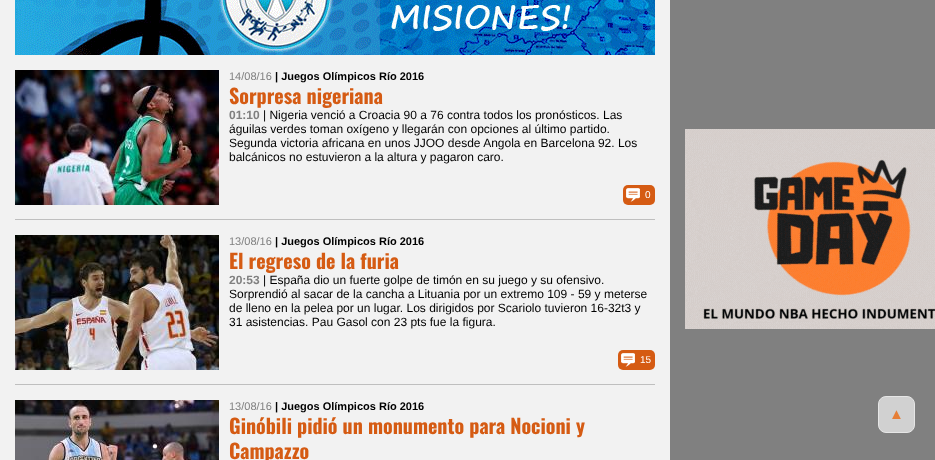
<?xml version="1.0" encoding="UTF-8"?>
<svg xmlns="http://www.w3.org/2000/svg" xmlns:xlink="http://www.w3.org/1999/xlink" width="935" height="460">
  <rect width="100%" height="100%" fill="#f2f2f2" />
  <image x="15" y="0" width="640" height="55" xlink:href="image1.png" />
  <image x="15" y="70" width="204" height="135" xlink:href="image2.png" />
  <rect x="623" y="185" width="32" height="20" rx="5" fill="#d55b13" />
  <image x="626" y="188" width="14" height="14" xlink:href="image3.png" />
  <rect x="15" y="219" width="640" height="1" fill="#bfbfbf" />
  <image x="15" y="235" width="204" height="135" xlink:href="image4.png" />
  <rect x="618" y="350" width="37" height="20" rx="5" fill="#d55b13" />
  <image x="621" y="353" width="14" height="14" xlink:href="image3.png" />
  <rect x="15" y="384" width="640" height="1" fill="#bfbfbf" />
  <image x="15" y="400" width="204" height="60" xlink:href="image5.png" />
  <rect x="670" width="265" height="460" fill="#808080" />
  <image x="685" y="129" width="250" height="200" xlink:href="image6.png" />
  <rect x="878.5" y="396.5" width="36" height="36" rx="7.5" fill="#d1d1d1" stroke="#e6e6e6" />
  <text x="229" y="80" style="font-family: Liberation Sans; font-size: 11px; fill: #808080">14/08/16</text>
  <text x="275" y="80" style="font-family: Liberation Sans; font-size: 11px; font-weight: bold; fill: #000000">| Juegos Olímpicos Río 2016</text>
  <text x="229" y="104" style="font-family: Oswald; font-size: 20px; font-weight: bold; fill: #d55b13">Sorpresa nigeriana</text>
  <text x="229" y="119" style="font-family: Liberation Sans; font-size: 12px; font-weight: bold; fill: #808080">01:10</text>
  <text x="263" y="119" style="font-family: Liberation Sans; font-size: 12px; fill: #000000">| Nigeria venció a Croacia 90 a 76 contra todos los pronósticos. Las</text>
  <text x="229" y="133" style="font-family: Liberation Sans; font-size: 12px; fill: #000000">águilas verdes toman oxígeno y llegarán con opciones al último partido.</text>
  <text x="229" y="147" style="font-family: Liberation Sans; font-size: 12px; fill: #000000">Segunda victoria africana en unos JJOO desde Angola en Barcelona 92. Los</text>
  <text x="229" y="161" style="font-family: Liberation Sans; font-size: 12px; fill: #000000">balcánicos no estuvieron a la altura y pagaron caro.</text>
  <text x="645" y="198" style="font-family: Liberation Sans; font-size: 10px; fill: #ffffff">0</text>
  <text x="229" y="245" style="font-family: Liberation Sans; font-size: 11px; fill: #808080">13/08/16</text>
  <text x="275" y="245" style="font-family: Liberation Sans; font-size: 11px; font-weight: bold; fill: #000000">| Juegos Olímpicos Río 2016</text>
  <text x="229" y="269" style="font-family: Oswald; font-size: 20px; font-weight: bold; fill: #d55b13">El regreso de la furia</text>
  <text x="229" y="284" style="font-family: Liberation Sans; font-size: 12px; font-weight: bold; fill: #808080">20:53</text>
  <text x="263" y="284" style="font-family: Liberation Sans; font-size: 12px; fill: #000000">| España dio un fuerte golpe de timón en su juego y su ofensivo.</text>
  <text x="229" y="298" style="font-family: Liberation Sans; font-size: 12px; fill: #000000">Sorprendió al sacar de la cancha a Lituania por un extremo 109 - 59 y meterse</text>
  <text x="229" y="312" style="font-family: Liberation Sans; font-size: 12px; fill: #000000">de lleno en la pelea por un lugar. Los dirigidos por Scariolo tuvieron 16-32t3 y</text>
  <text x="229" y="326" style="font-family: Liberation Sans; font-size: 12px; fill: #000000">31 asistencias. Pau Gasol con 23 pts fue la figura.</text>
  <text x="640" y="363" style="font-family: Liberation Sans; font-size: 10px; fill: #ffffff">15</text>
  <text x="229" y="410" style="font-family: Liberation Sans; font-size: 11px; fill: #808080">13/08/16</text>
  <text x="275" y="410" style="font-family: Liberation Sans; font-size: 11px; font-weight: bold; fill: #000000">| Juegos Olímpicos Río 2016</text>
  <text x="229" y="434" style="font-family: Oswald; font-size: 20px; font-weight: bold; fill: #d55b13">Ginóbili pidió un monumento para Nocioni y</text>
  <text x="229" y="459" style="font-family: Oswald; font-size: 20px; font-weight: bold; fill: #d55b13">Campazzo</text>
  <text x="889" y="419" style="font-family: Liberation Sans; font-size: 15px; fill: #e67e36">▲</text>
</svg>
